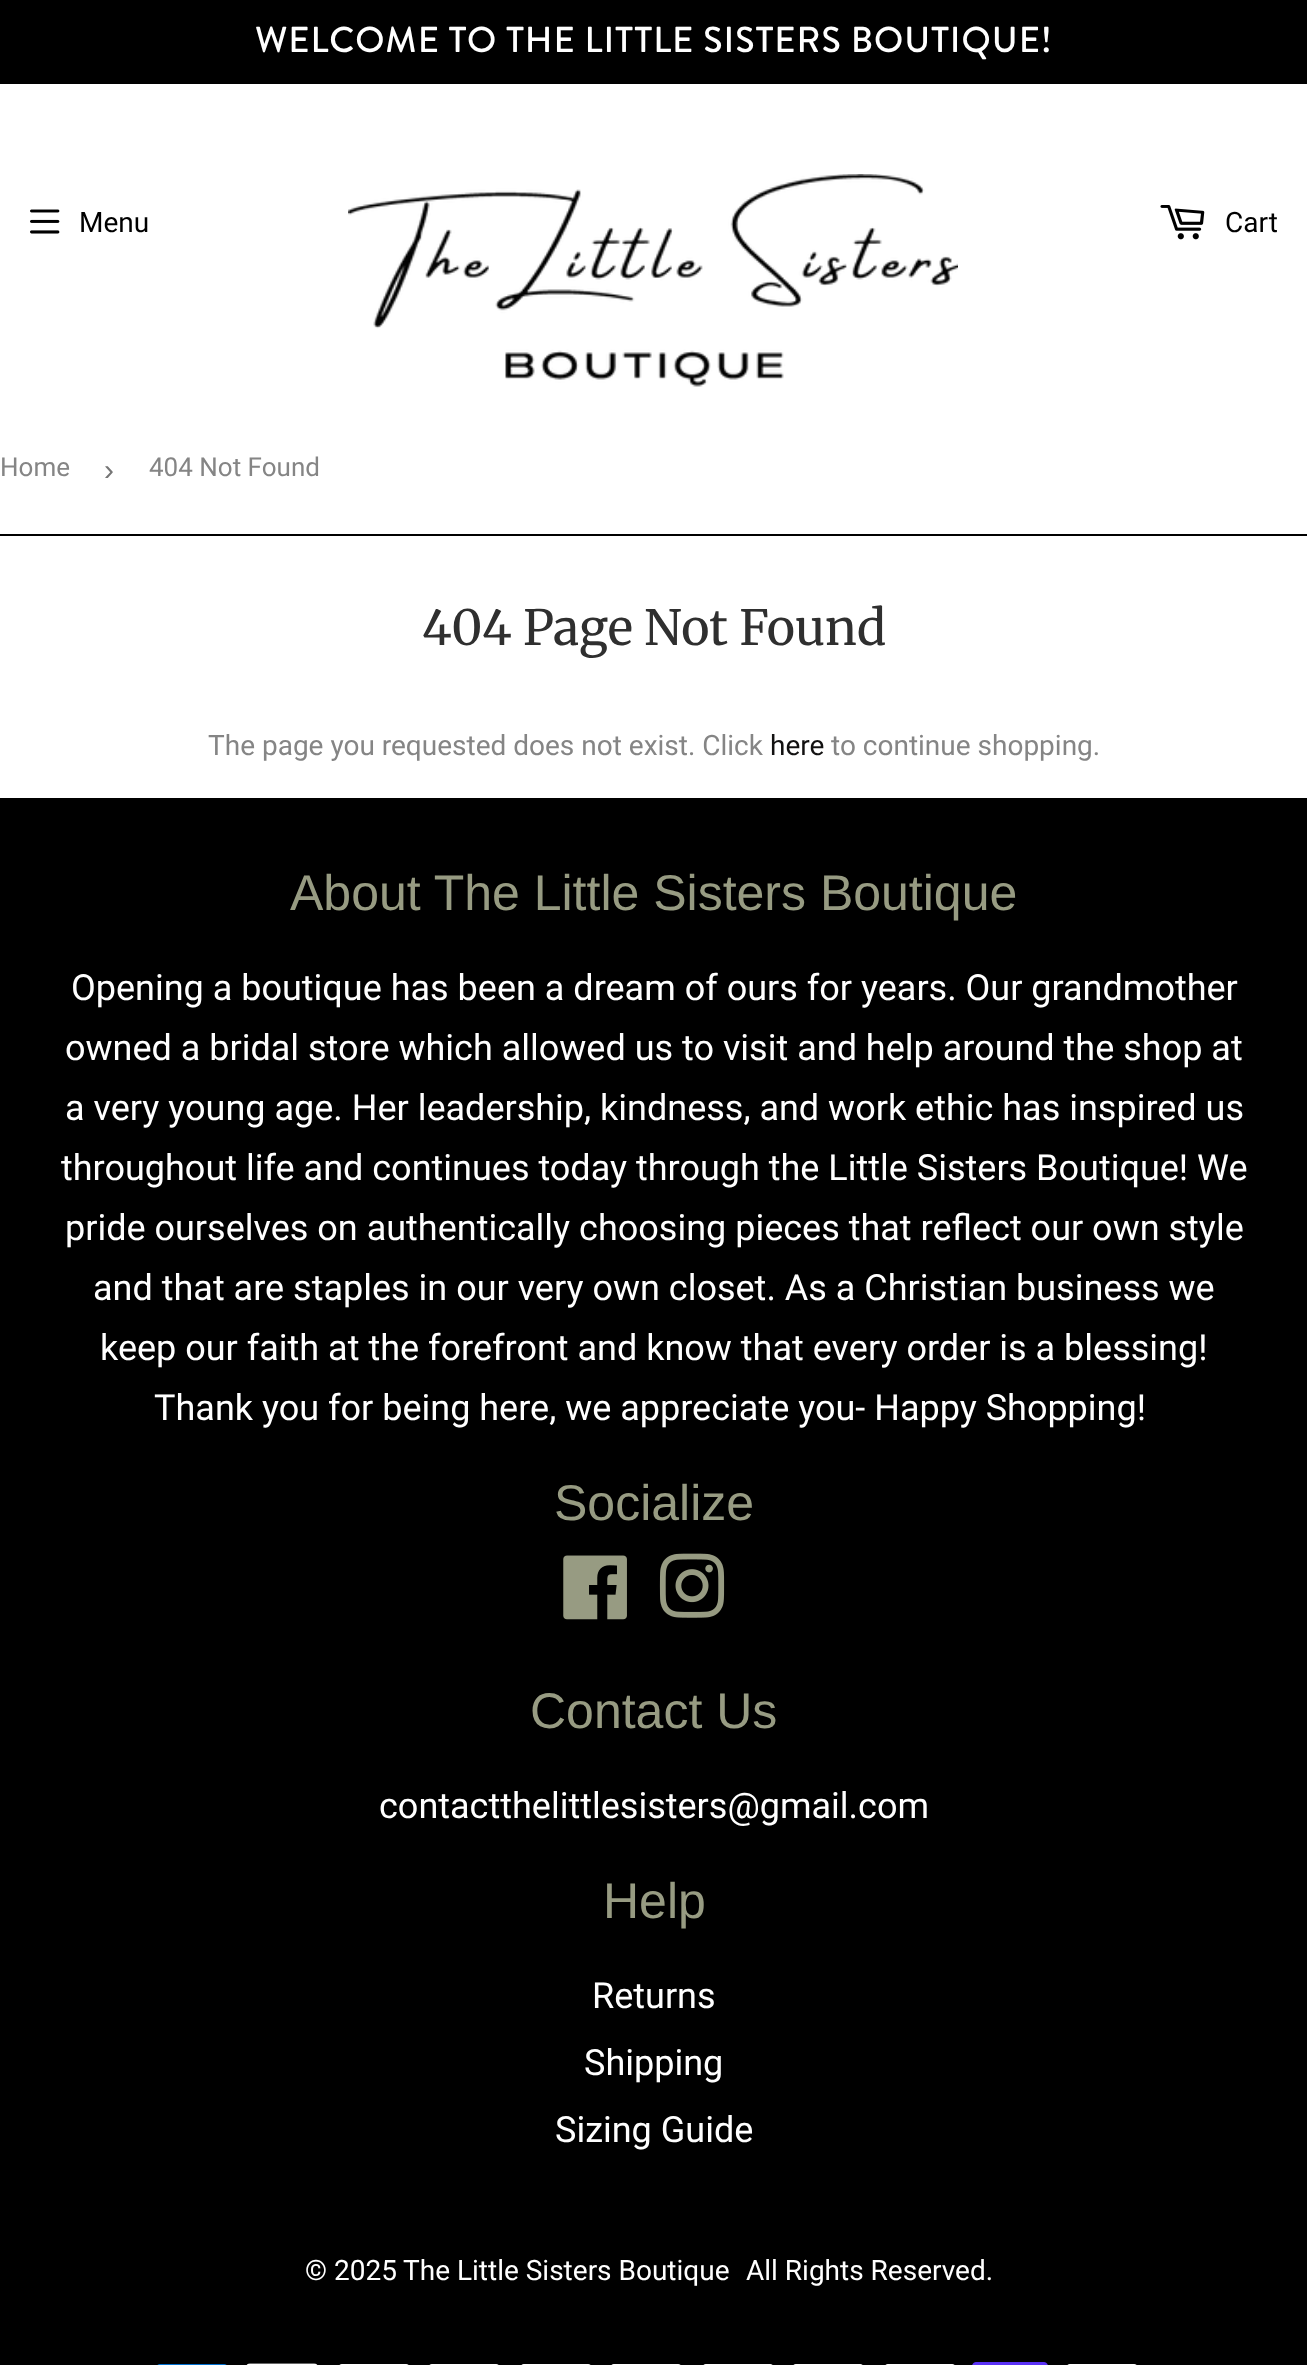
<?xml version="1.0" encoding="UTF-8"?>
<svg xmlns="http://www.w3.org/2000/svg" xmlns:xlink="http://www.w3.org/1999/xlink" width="1307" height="2365">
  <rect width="100%" height="100%" fill="#ffffff" />
  <rect width="1307" height="84" fill="#000000" />
  <image x="348" y="174" width="610" height="213" xlink:href="image1.png" />
  <image x="30" y="209" width="30" height="25" xlink:href="image2.png" />
  <image x="1160" y="205" width="45" height="35" xlink:href="image3.png" />
  <rect y="534" width="1307" height="2" fill="#000000" />
  <rect y="798" width="1307" height="1567" fill="#000000" />
  <image x="563" y="1555" width="64" height="65" xlink:href="image4.png" />
  <image x="659" y="1553" width="66" height="65" xlink:href="image5.png" />
  <image x="157" y="2364" width="70" height="1" xlink:href="image6.png" />
  <image x="246" y="2363" width="72" height="2" xlink:href="image7.png" />
  <image x="339" y="2364" width="70" height="1" xlink:href="image8.png" />
  <image x="429" y="2364" width="70" height="1" xlink:href="image8.png" />
  <image x="521" y="2364" width="70" height="1" xlink:href="image8.png" />
  <image x="611" y="2364" width="70" height="1" xlink:href="image8.png" />
  <image x="703" y="2364" width="70" height="1" xlink:href="image8.png" />
  <image x="793" y="2364" width="70" height="1" xlink:href="image8.png" />
  <image x="885" y="2364" width="70" height="1" xlink:href="image8.png" />
  <image x="972" y="2362" width="76" height="3" xlink:href="image9.png" />
  <image x="1067" y="2364" width="70" height="1" xlink:href="image8.png" />
  <text x="255" y="52" style="font-family: Brandon Grotesque; font-size: 36px; font-weight: 500; letter-spacing: 1px; fill: #ffffff">WELCOME TO THE LITTLE SISTERS BOUTIQUE!</text>
  <text x="79" y="232" style="font-family: Roboto; font-size: 28px; fill: #000000">Menu</text>
  <text x="1225" y="232" style="font-family: Roboto; font-size: 28px; fill: #000000">Cart</text>
  <text x="0" y="476" style="font-family: Roboto; font-size: 26px; fill: #858585">Home</text>
  <text x="104" y="480" style="font-family: Liberation Sans; font-size: 30px; fill: #767676">›</text>
  <text x="149" y="476" style="font-family: Roboto; font-size: 26px; fill: #858585">404 Not Found</text>
  <text x="422" y="645" style="font-family: Merriweather; font-size: 48.5px; fill: #2f2f2f">404 Page Not Found</text>
  <text x="208" y="755" style="font-family: Roboto; font-size: 28px; fill: #858585">The page you requested does not exist. Click</text>
  <text x="770" y="755" style="font-family: Roboto; font-size: 28px; fill: #121111">here</text>
  <text x="831" y="755" style="font-family: Roboto; font-size: 28px; fill: #858585">to continue shopping.</text>
  <text x="290" y="910" style="font-family: Liberation Sans; font-size: 50px; fill: #979b82">About The Little Sisters Boutique</text>
  <text x="71" y="1000" style="font-family: Roboto; font-size: 36px; fill: #ffffff">Opening a boutique has been a dream of ours for years. Our grandmother</text>
  <text x="65" y="1060" style="font-family: Roboto; font-size: 36px; fill: #ffffff">owned a bridal store which allowed us to visit and help around the shop at</text>
  <text x="65" y="1120" style="font-family: Roboto; font-size: 36px; fill: #ffffff">a very young age. Her leadership, kindness, and work ethic has inspired us</text>
  <text x="61" y="1180" style="font-family: Roboto; font-size: 36px; fill: #ffffff">throughout life and continues today through the Little Sisters Boutique! We</text>
  <text x="65" y="1240" style="font-family: Roboto; font-size: 36px; fill: #ffffff">pride ourselves on authentically choosing pieces that reflect our own style</text>
  <text x="93" y="1300" style="font-family: Roboto; font-size: 36px; fill: #ffffff">and that are staples in our very own closet. As a Christian business we</text>
  <text x="100" y="1360" style="font-family: Roboto; font-size: 36px; fill: #ffffff">keep our faith at the forefront and know that every order is a blessing!</text>
  <text x="154" y="1420" style="font-family: Roboto; font-size: 36px; fill: #ffffff">Thank you for being here, we appreciate you- Happy Shopping!</text>
  <text x="554" y="1520" style="font-family: Liberation Sans; font-size: 50px; fill: #979b82">Socialize</text>
  <text x="530" y="1728" style="font-family: Liberation Sans; font-size: 50px; fill: #979b82">Contact Us</text>
  <text x="379" y="1818" style="font-family: Roboto; font-size: 36px; fill: #ffffff">contactthelittlesisters@gmail.com</text>
  <text x="603" y="1918" style="font-family: Liberation Sans; font-size: 50px; fill: #979b82">Help</text>
  <text x="592" y="2008" style="font-family: Roboto; font-size: 36px; fill: #ffffff">Returns</text>
  <text x="584" y="2075" style="font-family: Roboto; font-size: 36px; fill: #ffffff">Shipping</text>
  <text x="555" y="2142" style="font-family: Roboto; font-size: 36px; fill: #ffffff">Sizing Guide</text>
  <text x="305" y="2280" style="font-family: Roboto; font-size: 28px; fill: #ffffff">© 2025</text>
  <text x="403" y="2280" style="font-family: Roboto; font-size: 28px; fill: #ffffff">The Little Sisters Boutique</text>
  <text x="746" y="2280" style="font-family: Roboto; font-size: 28px; fill: #ffffff">All Rights Reserved.</text>
</svg>
